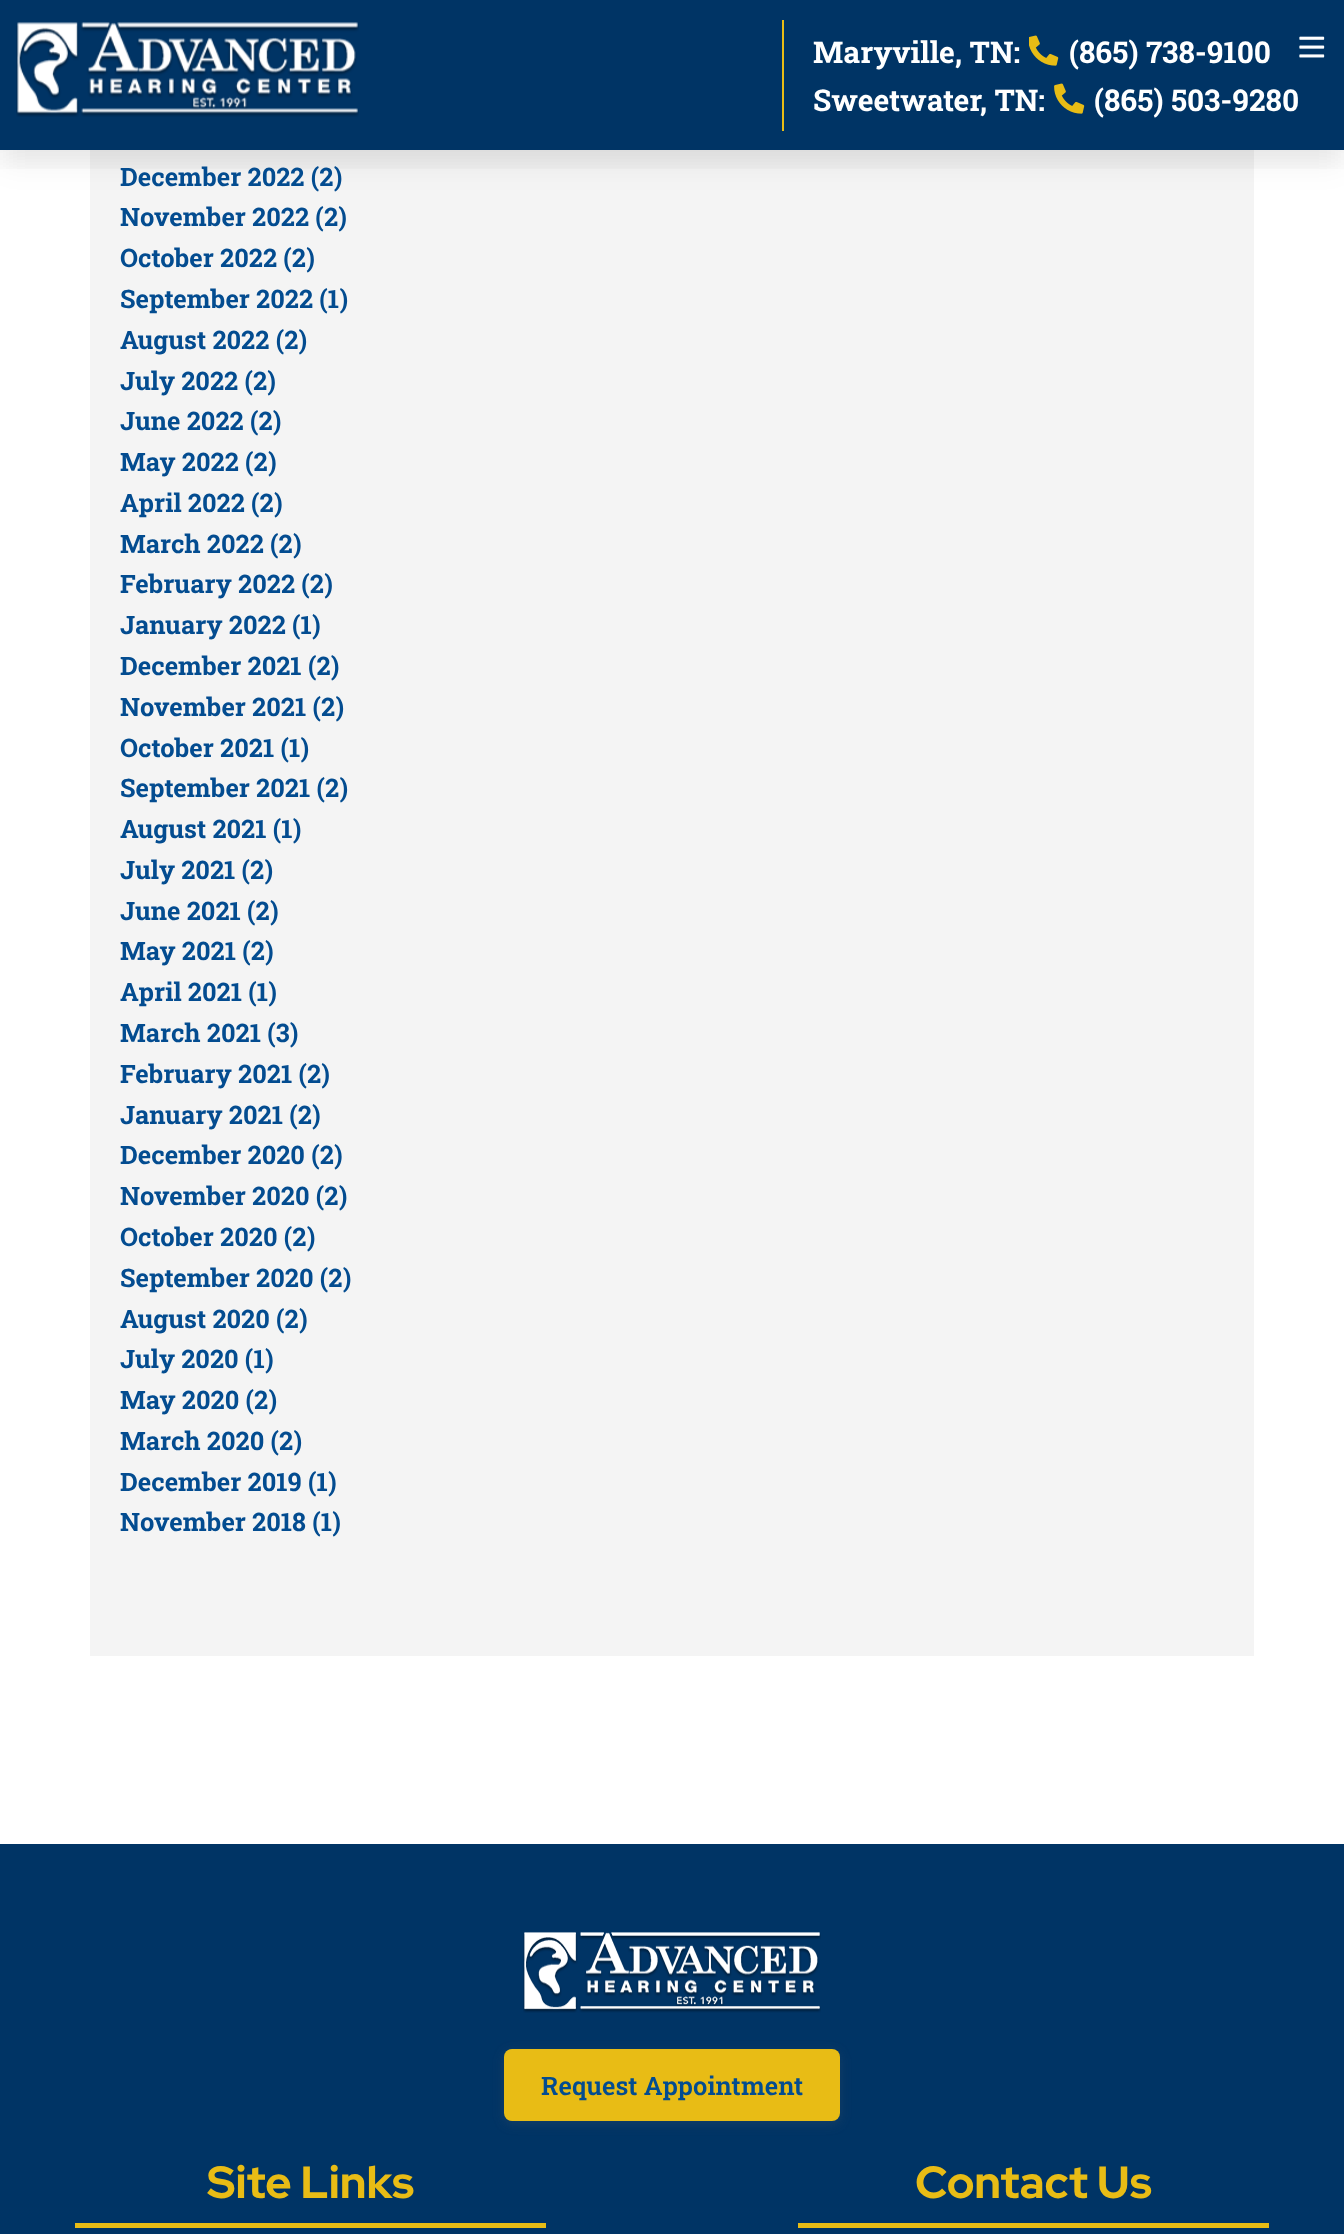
<?xml version="1.0" encoding="UTF-8"?>
<svg xmlns="http://www.w3.org/2000/svg" xmlns:xlink="http://www.w3.org/1999/xlink" width="1344" height="2234">
  <defs>
    <clipPath id="clip1"><rect x="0" y="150" width="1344" height="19" /></clipPath>
  </defs>
  <rect width="100%" height="100%" fill="#ffffff" />
  <rect x="90" y="150" width="1164" height="1506" fill="#f4f4f4" />
  <rect y="15" width="1344" height="150" fill="#000000" fill-opacity="0.05" filter="blur(15px)" />
  <rect width="1344" height="150" fill="#003465" />
  <g clip-path="url(#clip1)">
    <rect y="15" width="1344" height="150" fill="#000000" fill-opacity="0.05" filter="blur(15px)" />
  </g>
  <image x="16" y="22" width="343" height="95" xlink:href="image1.png" />
  <rect x="782" y="20" width="2" height="111" fill="#e8bc15" />
  <image x="1029" y="35" width="30" height="31" xlink:href="image2.png" />
  <image x="1054" y="83" width="31" height="31" xlink:href="image3.png" />
  <image x="1299" y="36" width="26" height="22" xlink:href="image4.png" />
  <rect y="1844" width="1344" height="390" fill="#003465" />
  <image x="523" y="1932" width="298" height="81" xlink:href="image5.png" />
  <rect x="504" y="2052" width="336" height="72" rx="8" fill="#636363" fill-opacity="0.2" filter="blur(6px)" />
  <rect x="504" y="2049" width="336" height="72" rx="8" fill="#e8bc15" />
  <rect x="75" y="2223" width="471" height="5" fill="#e8bc15" />
  <rect x="798" y="2223" width="471" height="5" fill="#e8bc15" />
  <text x="813" y="63" style="font-family: Roboto Slab; font-size: 30px; font-weight: bold; fill: #ffffff">Maryville, TN:</text>
  <text x="1069" y="63" style="font-family: Roboto Slab; font-size: 30px; font-weight: bold; fill: #ffffff">(865) 738-9100</text>
  <text x="813" y="111" style="font-family: Roboto Slab; font-size: 30px; font-weight: bold; fill: #ffffff">Sweetwater, TN:</text>
  <text x="1094" y="111" style="font-family: Roboto Slab; font-size: 30px; font-weight: bold; fill: #ffffff">(865) 503-9280</text>
  <text x="120" y="186" style="font-family: Roboto Slab; font-size: 25.5px; font-weight: bold; fill: #034c90">December 2022 (2)</text>
  <text x="120" y="226" style="font-family: Roboto Slab; font-size: 25.5px; font-weight: bold; fill: #034c90">November 2022 (2)</text>
  <text x="120" y="267" style="font-family: Roboto Slab; font-size: 25.5px; font-weight: bold; fill: #034c90">October 2022 (2)</text>
  <text x="120" y="308" style="font-family: Roboto Slab; font-size: 25.5px; font-weight: bold; fill: #034c90">September 2022 (1)</text>
  <text x="120" y="349" style="font-family: Roboto Slab; font-size: 25.5px; font-weight: bold; fill: #034c90">August 2022 (2)</text>
  <text x="120" y="390" style="font-family: Roboto Slab; font-size: 25.5px; font-weight: bold; fill: #034c90">July 2022 (2)</text>
  <text x="120" y="430" style="font-family: Roboto Slab; font-size: 25.5px; font-weight: bold; fill: #034c90">June 2022 (2)</text>
  <text x="120" y="471" style="font-family: Roboto Slab; font-size: 25.5px; font-weight: bold; fill: #034c90">May 2022 (2)</text>
  <text x="120" y="512" style="font-family: Roboto Slab; font-size: 25.5px; font-weight: bold; fill: #034c90">April 2022 (2)</text>
  <text x="120" y="553" style="font-family: Roboto Slab; font-size: 25.5px; font-weight: bold; fill: #034c90">March 2022 (2)</text>
  <text x="120" y="593" style="font-family: Roboto Slab; font-size: 25.5px; font-weight: bold; fill: #034c90">February 2022 (2)</text>
  <text x="120" y="634" style="font-family: Roboto Slab; font-size: 25.5px; font-weight: bold; fill: #034c90">January 2022 (1)</text>
  <text x="120" y="675" style="font-family: Roboto Slab; font-size: 25.5px; font-weight: bold; fill: #034c90">December 2021 (2)</text>
  <text x="120" y="716" style="font-family: Roboto Slab; font-size: 25.5px; font-weight: bold; fill: #034c90">November 2021 (2)</text>
  <text x="120" y="757" style="font-family: Roboto Slab; font-size: 25.5px; font-weight: bold; fill: #034c90">October 2021 (1)</text>
  <text x="120" y="797" style="font-family: Roboto Slab; font-size: 25.5px; font-weight: bold; fill: #034c90">September 2021 (2)</text>
  <text x="120" y="838" style="font-family: Roboto Slab; font-size: 25.5px; font-weight: bold; fill: #034c90">August 2021 (1)</text>
  <text x="120" y="879" style="font-family: Roboto Slab; font-size: 25.5px; font-weight: bold; fill: #034c90">July 2021 (2)</text>
  <text x="120" y="920" style="font-family: Roboto Slab; font-size: 25.5px; font-weight: bold; fill: #034c90">June 2021 (2)</text>
  <text x="120" y="960" style="font-family: Roboto Slab; font-size: 25.5px; font-weight: bold; fill: #034c90">May 2021 (2)</text>
  <text x="120" y="1001" style="font-family: Roboto Slab; font-size: 25.5px; font-weight: bold; fill: #034c90">April 2021 (1)</text>
  <text x="120" y="1042" style="font-family: Roboto Slab; font-size: 25.5px; font-weight: bold; fill: #034c90">March 2021 (3)</text>
  <text x="120" y="1083" style="font-family: Roboto Slab; font-size: 25.5px; font-weight: bold; fill: #034c90">February 2021 (2)</text>
  <text x="120" y="1124" style="font-family: Roboto Slab; font-size: 25.5px; font-weight: bold; fill: #034c90">January 2021 (2)</text>
  <text x="120" y="1164" style="font-family: Roboto Slab; font-size: 25.5px; font-weight: bold; fill: #034c90">December 2020 (2)</text>
  <text x="120" y="1205" style="font-family: Roboto Slab; font-size: 25.5px; font-weight: bold; fill: #034c90">November 2020 (2)</text>
  <text x="120" y="1246" style="font-family: Roboto Slab; font-size: 25.5px; font-weight: bold; fill: #034c90">October 2020 (2)</text>
  <text x="120" y="1287" style="font-family: Roboto Slab; font-size: 25.5px; font-weight: bold; fill: #034c90">September 2020 (2)</text>
  <text x="120" y="1328" style="font-family: Roboto Slab; font-size: 25.5px; font-weight: bold; fill: #034c90">August 2020 (2)</text>
  <text x="120" y="1368" style="font-family: Roboto Slab; font-size: 25.5px; font-weight: bold; fill: #034c90">July 2020 (1)</text>
  <text x="120" y="1409" style="font-family: Roboto Slab; font-size: 25.5px; font-weight: bold; fill: #034c90">May 2020 (2)</text>
  <text x="120" y="1450" style="font-family: Roboto Slab; font-size: 25.5px; font-weight: bold; fill: #034c90">March 2020 (2)</text>
  <text x="120" y="1491" style="font-family: Roboto Slab; font-size: 25.5px; font-weight: bold; fill: #034c90">December 2019 (1)</text>
  <text x="120" y="1531" style="font-family: Roboto Slab; font-size: 25.5px; font-weight: bold; fill: #034c90">November 2018 (1)</text>
  <text x="541" y="2095" style="font-family: Roboto Slab; font-size: 25.5px; font-weight: 600; fill: #034c90">Request Appointment</text>
  <text x="207" y="2198" style="font-family: Red Hat Display; font-size: 45px; font-weight: bold; fill: #e8bc15">Site Links</text>
  <text x="915" y="2198" style="font-family: Red Hat Display; font-size: 45px; font-weight: bold; fill: #e8bc15">Contact Us</text>
</svg>
